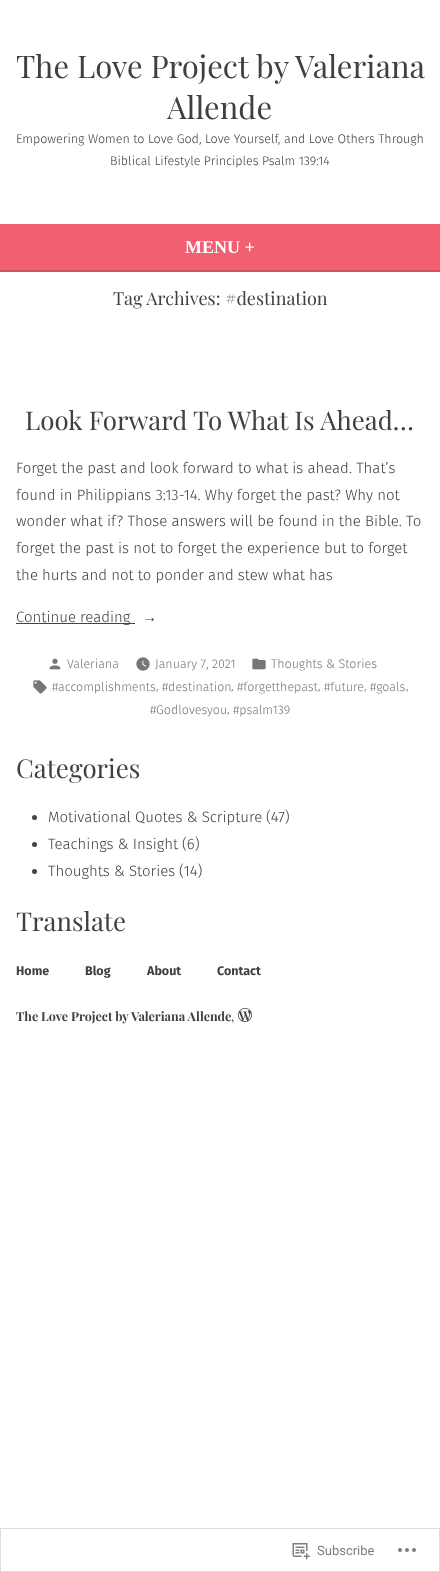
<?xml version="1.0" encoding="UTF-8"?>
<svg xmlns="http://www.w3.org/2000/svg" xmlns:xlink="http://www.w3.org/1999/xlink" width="440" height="1572">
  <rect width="100%" height="100%" fill="#ffffff" />
  <rect y="224" width="440" height="46" fill="#f25f70" />
  <rect y="270" width="440" height="2" fill="#ce515f" />
  <rect x="16" y="623" width="119" height="1" fill="#444444" />
  <image x="49" y="658" width="12" height="12" xlink:href="image1.png" />
  <image x="136" y="657" width="14" height="14" xlink:href="image2.png" />
  <image x="252" y="658" width="14" height="12" xlink:href="image3.png" />
  <image x="33" y="680" width="14" height="14" xlink:href="image4.png" />
  <circle cx="34.5" cy="817.5" r="2.5" fill="#444444" />
  <circle cx="34.5" cy="844.5" r="2.5" fill="#444444" />
  <circle cx="34.5" cy="871.5" r="2.5" fill="#444444" />
  <image x="238" y="1008" width="14" height="14" xlink:href="image5.png" />
  <rect x="0.5" y="1528.5" width="439" height="43" fill="none" stroke="#dddddf" />
  <image x="292" y="1543" width="18" height="17" xlink:href="image6.png" />
  <image x="398" y="1548" width="18" height="4" xlink:href="image7.png" />
  <text x="16" y="78" style="font-family: Playfair Display; font-size: 31.1px; fill: #404040">The Love Project by Valeriana</text>
  <text x="167" y="119" style="font-family: Playfair Display; font-size: 31.1px; fill: #404040">Allende</text>
  <text x="16" y="143" style="font-family: Fira Sans; font-size: 12.5px; font-weight: 300; fill: #404040">Empowering Women to Love God, Love Yourself, and Love Others Through</text>
  <text x="110" y="165" style="font-family: Fira Sans; font-size: 12.5px; font-weight: 300; fill: #404040">Biblical Lifestyle Principles Psalm 139:14</text>
  <text x="185" y="253" style="font-family: Liberation Serif; font-size: 18px; font-weight: bold; fill: #ffffff">MENU +</text>
  <text x="113" y="305" style="font-family: Playfair Display; font-size: 18px; fill: #404040">Tag Archives: #destination</text>
  <text x="25" y="430" style="font-family: Playfair Display; font-size: 25.9px; fill: #404040">Look Forward To What Is Ahead…</text>
  <text x="16" y="473" style="font-family: Fira Sans; font-size: 15px; font-weight: 300; fill: #404040">Forget the past and look forward to what is ahead. That’s</text>
  <text x="16" y="500" style="font-family: Fira Sans; font-size: 15px; font-weight: 300; fill: #404040">found in Philippians 3:13-14. Why forget the past? Why not</text>
  <text x="16" y="526" style="font-family: Fira Sans; font-size: 15px; font-weight: 300; fill: #404040">wonder what if? Those answers will be found in the Bible. To</text>
  <text x="16" y="553" style="font-family: Fira Sans; font-size: 15px; font-weight: 300; fill: #404040">forget the past is not to forget the experience but to forget</text>
  <text x="16" y="580" style="font-family: Fira Sans; font-size: 15px; font-weight: 300; fill: #404040">the hurts and not to ponder and stew what has</text>
  <text x="16" y="622" style="font-family: Fira Sans; font-size: 15px; font-weight: 300; fill: #404040">Continue reading</text>
  <text x="142" y="622" style="font-family: Liberation Serif; font-size: 15px; fill: #404040">→</text>
  <text x="67" y="668" style="font-family: Fira Sans; font-size: 12.5px; font-weight: 300; fill: #767676">Valeriana</text>
  <text x="155" y="668" style="font-family: Fira Sans; font-size: 12.5px; font-weight: 300; fill: #767676">January 7, 2021</text>
  <text x="271" y="668" style="font-family: Fira Sans; font-size: 12.5px; font-weight: 300; fill: #767676">Thoughts &amp; Stories</text>
  <text x="52" y="691" style="font-family: Fira Sans; font-size: 12.5px; font-weight: 300; fill: #767676">#accomplishments</text>
  <text x="156" y="690" style="font-family: Fira Sans; font-size: 12.5px; font-weight: 300; fill: #767676">,</text>
  <text x="162" y="691" style="font-family: Fira Sans; font-size: 12.5px; font-weight: 300; fill: #767676">#destination</text>
  <text x="231" y="690" style="font-family: Fira Sans; font-size: 12.5px; font-weight: 300; fill: #767676">,</text>
  <text x="237" y="691" style="font-family: Fira Sans; font-size: 12.5px; font-weight: 300; fill: #767676">#forgetthepast</text>
  <text x="318" y="690" style="font-family: Fira Sans; font-size: 12.5px; font-weight: 300; fill: #767676">,</text>
  <text x="324" y="691" style="font-family: Fira Sans; font-size: 12.5px; font-weight: 300; fill: #767676">#future</text>
  <text x="364" y="690" style="font-family: Fira Sans; font-size: 12.5px; font-weight: 300; fill: #767676">,</text>
  <text x="370" y="691" style="font-family: Fira Sans; font-size: 12.5px; font-weight: 300; fill: #767676">#goals</text>
  <text x="406" y="690" style="font-family: Fira Sans; font-size: 12.5px; font-weight: 300; fill: #767676">,</text>
  <text x="150" y="714" style="font-family: Fira Sans; font-size: 12.5px; font-weight: 300; fill: #767676">#Godlovesyou</text>
  <text x="227" y="713" style="font-family: Fira Sans; font-size: 12.5px; font-weight: 300; fill: #767676">,</text>
  <text x="233" y="714" style="font-family: Fira Sans; font-size: 12.5px; font-weight: 300; fill: #767676">#psalm139</text>
  <text x="16" y="778" style="font-family: Playfair Display; font-size: 25.9px; fill: #404040">Categories</text>
  <text x="48" y="822" style="font-family: Fira Sans; font-size: 15px; font-weight: 300; fill: #404040">Motivational Quotes &amp; Scripture</text>
  <text x="266" y="822" style="font-family: Fira Sans; font-size: 15px; font-weight: 300; fill: #404040">(47)</text>
  <text x="48" y="849" style="font-family: Fira Sans; font-size: 15px; font-weight: 300; fill: #404040">Teachings &amp; Insight</text>
  <text x="182" y="849" style="font-family: Fira Sans; font-size: 15px; font-weight: 300; fill: #404040">(6)</text>
  <text x="48" y="876" style="font-family: Fira Sans; font-size: 15px; font-weight: 300; fill: #404040">Thoughts &amp; Stories</text>
  <text x="179" y="876" style="font-family: Fira Sans; font-size: 15px; font-weight: 300; fill: #404040">(14)</text>
  <text x="16" y="931" style="font-family: Playfair Display; font-size: 25.9px; fill: #404040">Translate</text>
  <text x="16" y="975" style="font-family: Fira Sans; font-size: 12.5px; font-weight: bold; fill: #404040">Home</text>
  <text x="85" y="975" style="font-family: Fira Sans; font-size: 12.5px; font-weight: bold; fill: #404040">Blog</text>
  <text x="147" y="975" style="font-family: Fira Sans; font-size: 12.5px; font-weight: bold; fill: #404040">About</text>
  <text x="217" y="975" style="font-family: Fira Sans; font-size: 12.5px; font-weight: bold; fill: #404040">Contact</text>
  <text x="16" y="1021" style="font-family: Playfair Display; font-size: 12.5px; font-weight: bold; fill: #404040">The Love Project by Valeriana Allende</text>
  <text x="231" y="1021" style="font-family: Playfair Display; font-size: 12.5px; fill: #404040">,</text>
  <text x="317" y="1555" style="font-family: Roboto; font-size: 13px; fill: #7b7f85">Subscribe</text>
</svg>
